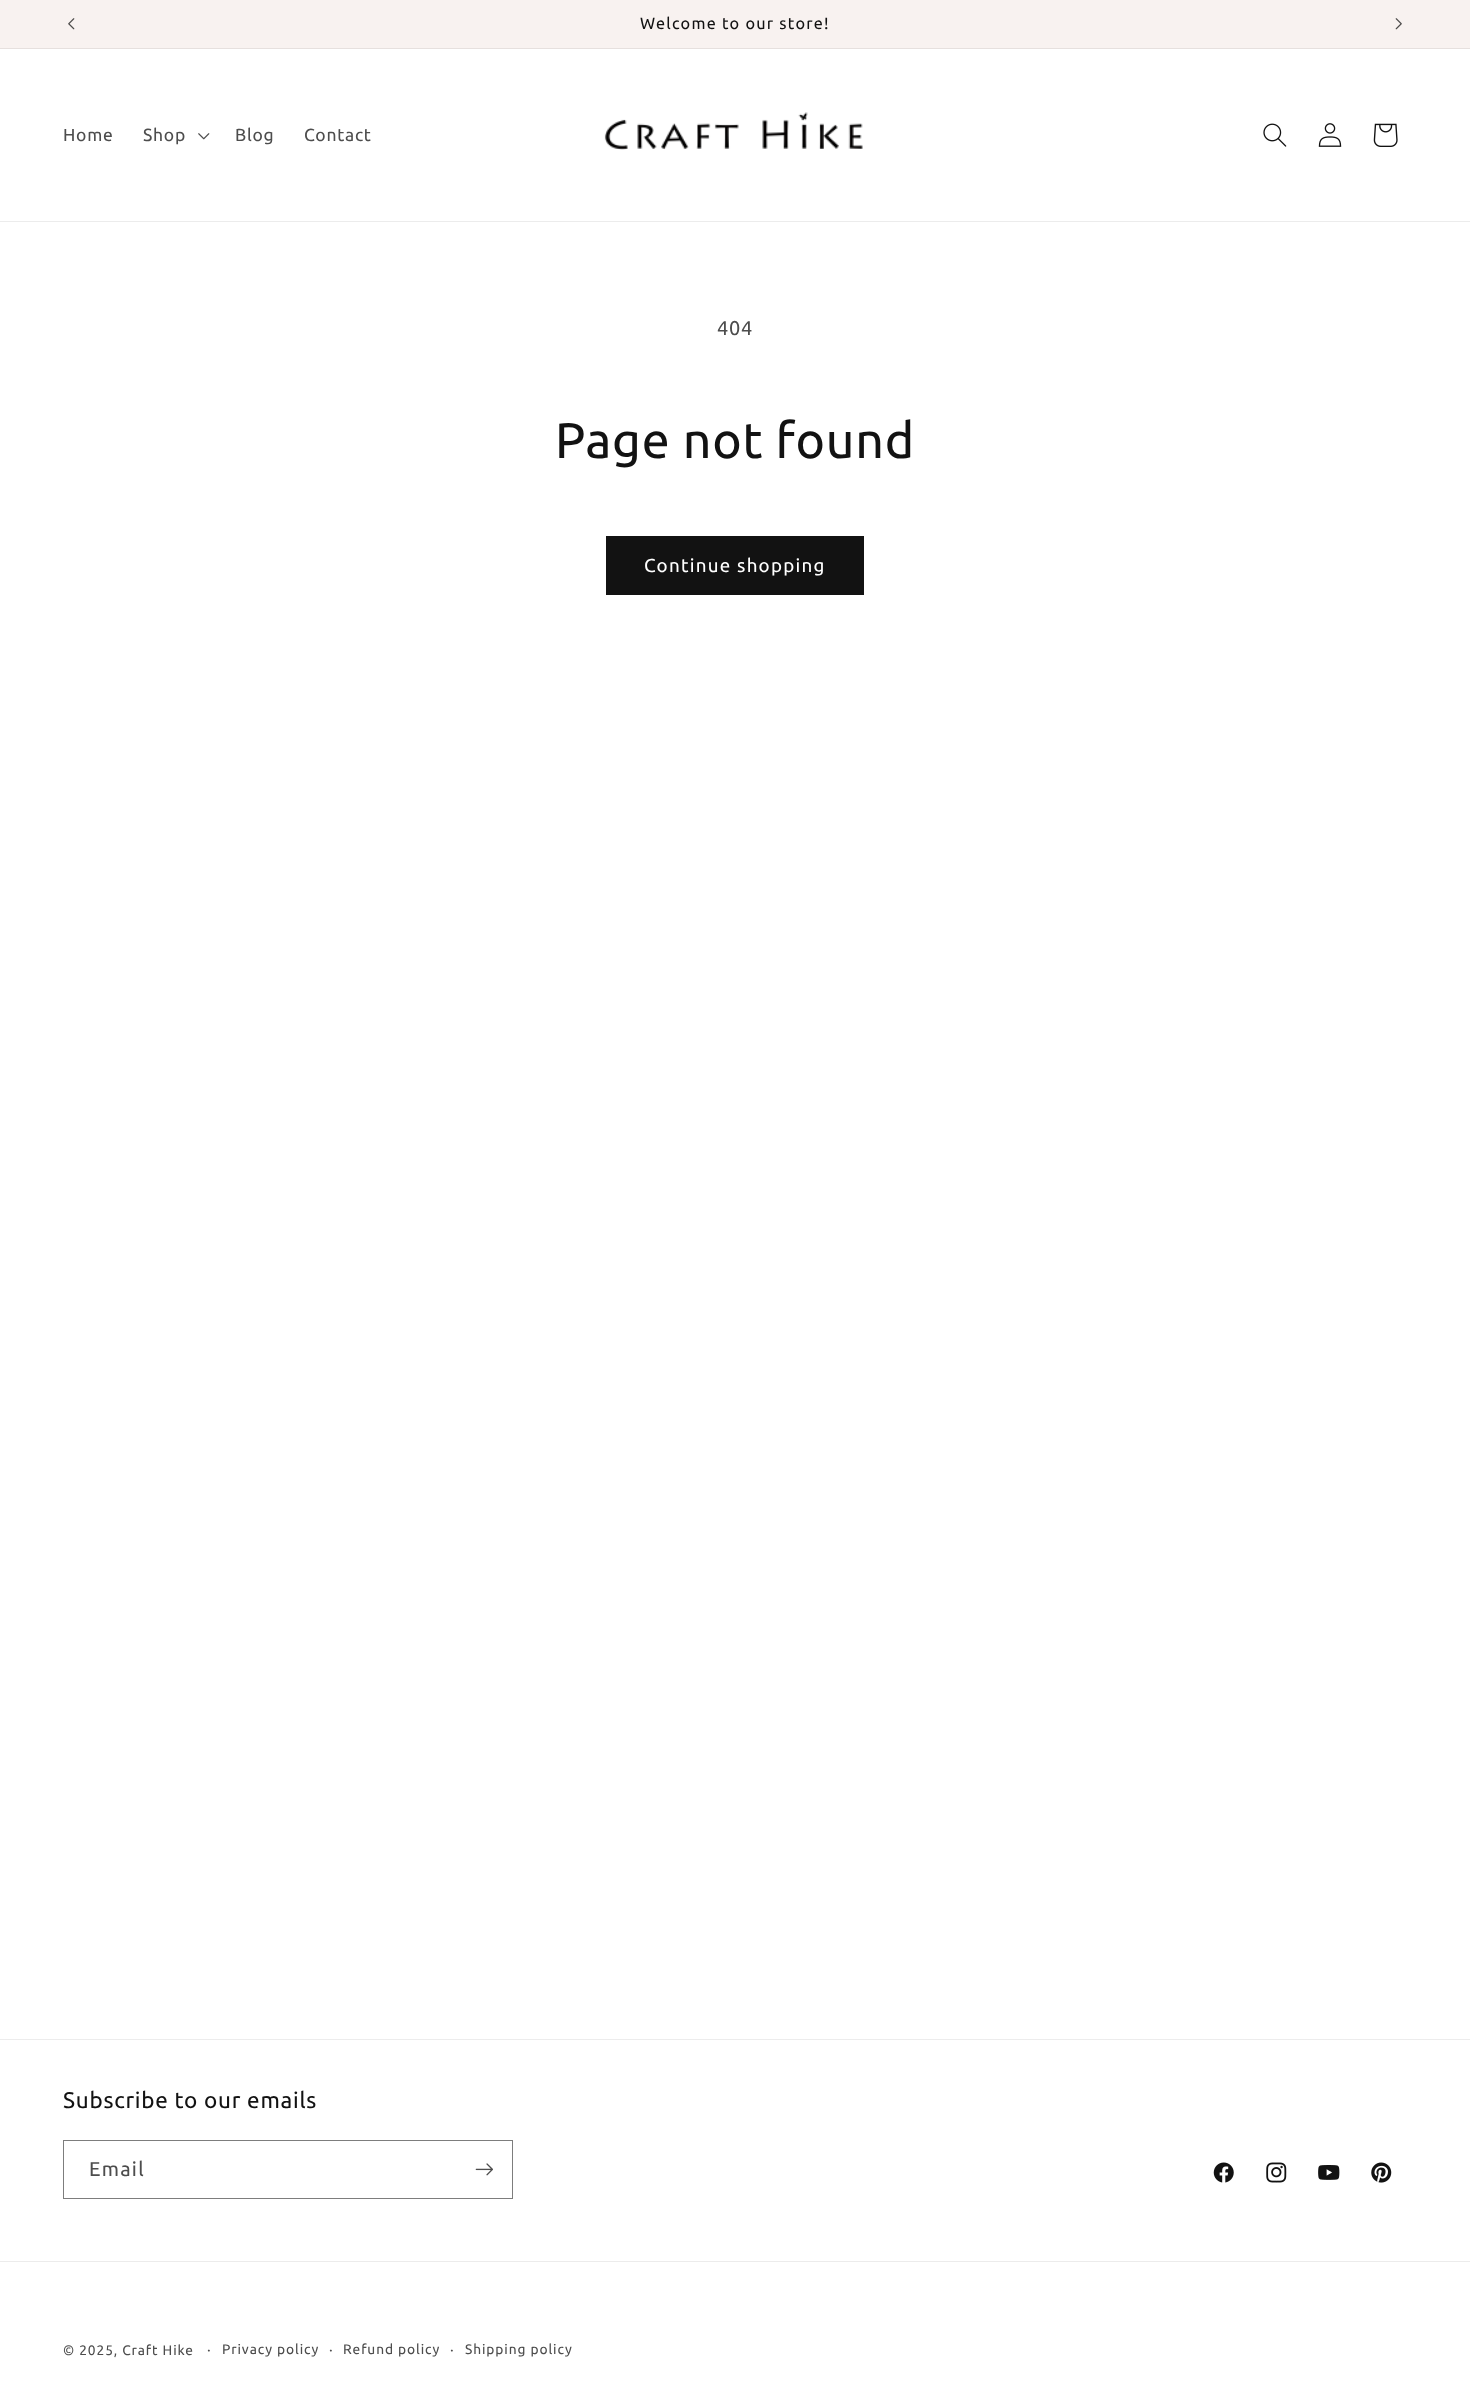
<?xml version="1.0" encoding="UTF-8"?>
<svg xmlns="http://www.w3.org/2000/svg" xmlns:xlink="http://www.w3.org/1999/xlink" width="1470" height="2407">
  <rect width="100%" height="100%" fill="#ffffff" />
  <rect width="1470" height="48" fill="#f8f2f0" />
  <rect y="48" width="1470" height="1" fill="#e6e0de" />
  <image x="68" y="18" width="7" height="12" xlink:href="image1.png" />
  <image x="1395" y="18" width="7" height="12" xlink:href="image2.png" />
  <rect y="221" width="1470" height="1" fill="#ececec" />
  <image x="198" y="133" width="12" height="7" xlink:href="image3.png" />
  <image x="604" y="112" width="259" height="38" xlink:href="image4.png" />
  <image x="1263" y="123" width="24" height="24" xlink:href="image5.png" />
  <image x="1318" y="123" width="24" height="24" xlink:href="image6.png" />
  <image x="1373" y="123" width="25" height="24" xlink:href="image7.png" />
  <rect x="606" y="536" width="258" height="59" fill="#121212" />
  <rect y="2039" width="1470" height="1" fill="#ececec" />
  <rect x="63.5" y="2140.5" width="449" height="58" fill="none" stroke="#7d7d7d" />
  <image x="475" y="2163" width="18" height="13" xlink:href="image8.png" />
  <image x="1213" y="2162" width="21" height="21" xlink:href="image9.png" />
  <image x="1266" y="2162" width="21" height="21" xlink:href="image10.png" />
  <image x="1318" y="2165" width="22" height="15" xlink:href="image11.png" />
  <image x="1371" y="2162" width="21" height="21" xlink:href="image12.png" />
  <rect y="2261" width="1470" height="1" fill="#ececec" />
  <text x="640" y="29" style="font-family: Ubuntu; font-size: 16.25px; letter-spacing: 1.25px; fill: #121212">Welcome to our store!</text>
  <text x="63" y="141" style="font-family: Ubuntu; font-size: 17.5px; letter-spacing: 0.75px; fill: #4d4d4d">Home</text>
  <text x="143" y="141" style="font-family: Ubuntu; font-size: 17.5px; letter-spacing: 0.75px; fill: #4d4d4d">Shop</text>
  <text x="235" y="141" style="font-family: Ubuntu; font-size: 17.5px; letter-spacing: 0.75px; fill: #4d4d4d">Blog</text>
  <text x="304" y="141" style="font-family: Ubuntu; font-size: 17.5px; letter-spacing: 0.75px; fill: #4d4d4d">Contact</text>
  <text x="717" y="335" style="font-family: Ubuntu; font-size: 20px; letter-spacing: 0.75px; fill: #4d4d4d">404</text>
  <text x="555" y="458" style="font-family: Ubuntu; font-size: 50px; letter-spacing: 0.75px; fill: #121212">Page not found</text>
  <text x="644" y="572" style="font-family: Ubuntu; font-size: 18.75px; letter-spacing: 1.25px; fill: #ffffff">Continue shopping</text>
  <text x="63" y="2108" style="font-family: Ubuntu; font-size: 22.5px; letter-spacing: 0.75px; fill: #121212">Subscribe to our emails</text>
  <text x="89" y="2176" style="font-family: Ubuntu; font-size: 20px; letter-spacing: 1.25px; fill: #4d4d4d">Email</text>
  <text x="63" y="2355" style="font-family: Ubuntu; font-size: 13.75px; letter-spacing: 0.9px; fill: #4d4d4d">© 2025, Craft Hike</text>
  <text x="207" y="2355" style="font-family: Ubuntu; font-size: 15px; letter-spacing: 0.9px; fill: #4d4d4d">·</text>
  <text x="222" y="2354" style="font-family: Ubuntu; font-size: 13.75px; letter-spacing: 0.9px; fill: #4d4d4d">Privacy policy</text>
  <text x="329" y="2355" style="font-family: Ubuntu; font-size: 15px; letter-spacing: 0.9px; fill: #4d4d4d">·</text>
  <text x="343" y="2354" style="font-family: Ubuntu; font-size: 13.75px; letter-spacing: 0.9px; fill: #4d4d4d">Refund policy</text>
  <text x="450" y="2355" style="font-family: Ubuntu; font-size: 15px; letter-spacing: 0.9px; fill: #4d4d4d">·</text>
  <text x="465" y="2354" style="font-family: Ubuntu; font-size: 13.75px; letter-spacing: 0.9px; fill: #4d4d4d">Shipping policy</text>
</svg>
